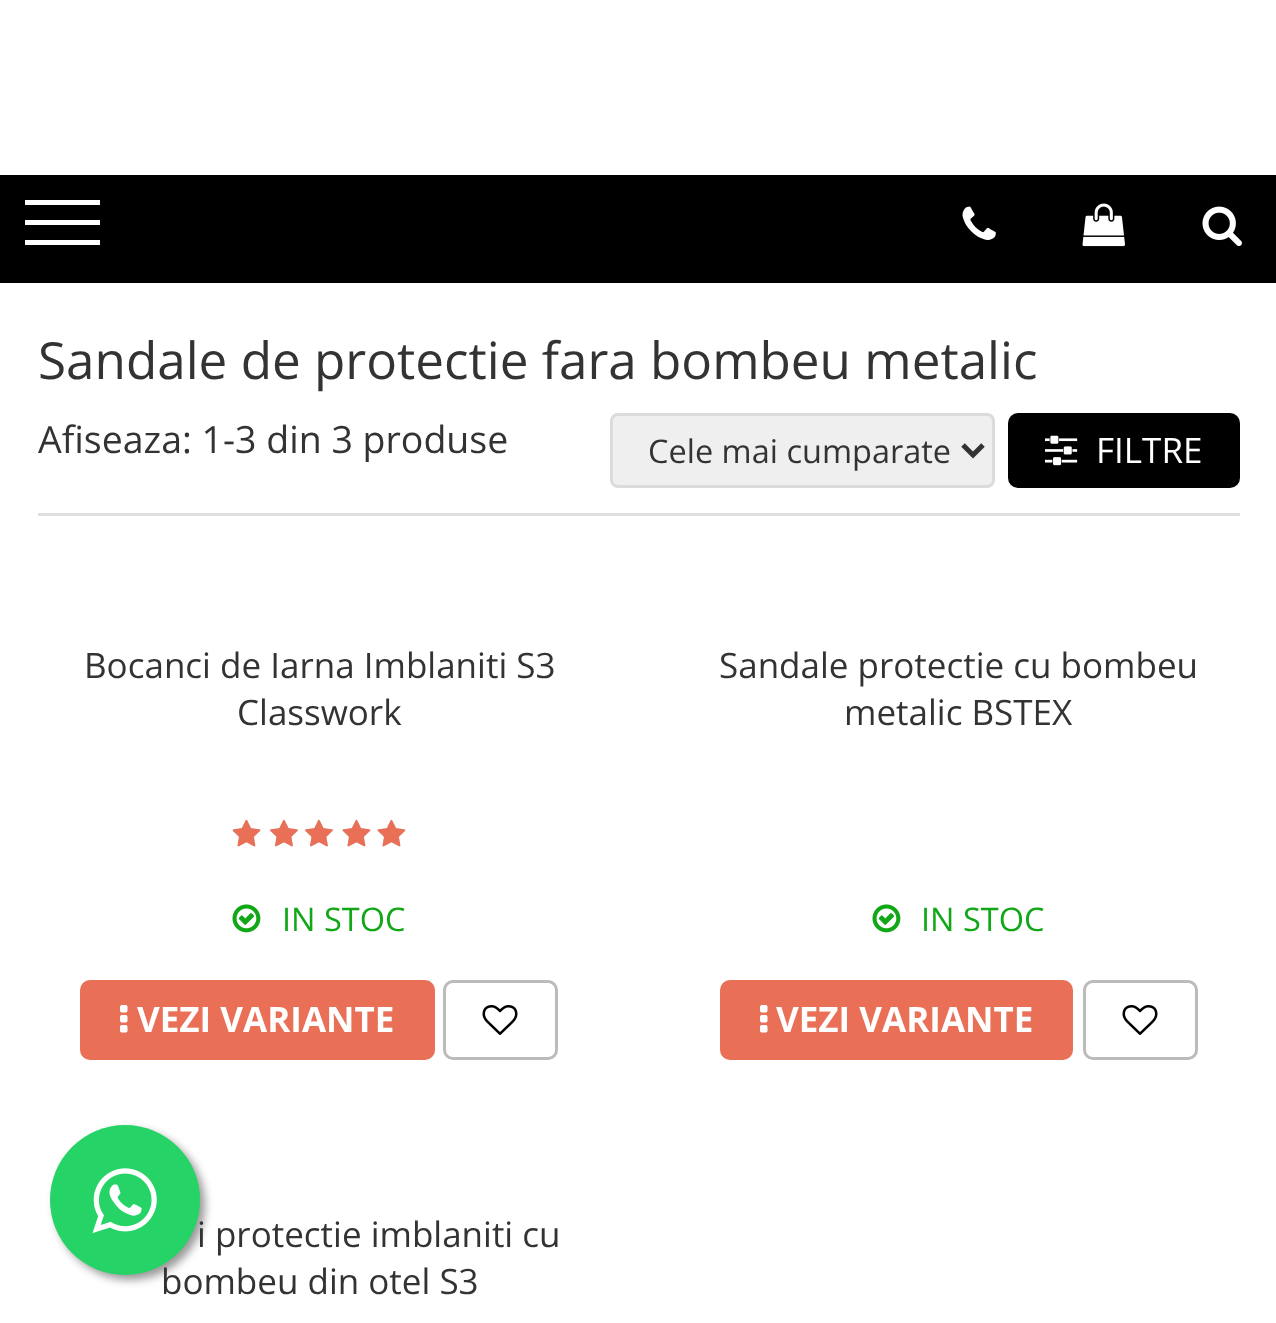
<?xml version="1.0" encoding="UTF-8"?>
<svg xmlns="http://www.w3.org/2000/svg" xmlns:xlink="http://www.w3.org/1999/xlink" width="1276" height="1323">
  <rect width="100%" height="100%" fill="#ffffff" />
  <rect y="175" width="1276" height="108" fill="#000000" />
  <rect x="25" y="220" width="75" height="5" fill="#ffffff" />
  <rect x="25" y="200" width="75" height="5" fill="#ffffff" />
  <rect x="25" y="240" width="75" height="5" fill="#ffffff" />
  <image x="962" y="206" width="34" height="34" xlink:href="image1.png" />
  <image x="1082" y="203" width="43" height="44" xlink:href="image2.png" />
  <image x="1202" y="206" width="40" height="40" xlink:href="image3.png" />
  <rect x="38" y="513" width="1202" height="3" fill="#dfdfdf" />
  <rect x="611.5" y="414.5" width="382" height="72" rx="6.5" fill="#efefef" stroke="#dbdbdb" stroke-width="3" />
  <path d="M 963 445 l 10 10 l 10 -10" fill="none" stroke="#333333" stroke-width="5" />
  <rect x="1008" y="413" width="232" height="75" rx="10" fill="#000000" />
  <image x="1045" y="435" width="33" height="31" xlink:href="image4.png" />
  <image x="232" y="819" width="29" height="28" xlink:href="image5.png" />
  <image x="233" y="819" width="28" height="28" xlink:href="image6.png" />
  <image x="270" y="820" width="28" height="27" xlink:href="image10.png" />
  <image x="270" y="819" width="28" height="28" xlink:href="image7.png" />
  <image x="305" y="820" width="28" height="27" xlink:href="image10.png" />
  <image x="305" y="819" width="28" height="28" xlink:href="image7.png" />
  <image x="342" y="819" width="29" height="28" xlink:href="image5.png" />
  <image x="342" y="819" width="29" height="28" xlink:href="image8.png" />
  <image x="377" y="819" width="29" height="28" xlink:href="image5.png" />
  <image x="377" y="819" width="28" height="28" xlink:href="image9.png" />
  <image x="232" y="904" width="29" height="29" xlink:href="image11.png" />
  <rect x="80" y="980" width="355" height="80" rx="10" fill="#e96f56" />
  <image x="120" y="1005" width="8" height="28" xlink:href="image12.png" />
  <rect x="444.5" y="981.5" width="112" height="77" rx="8.5" fill="none" stroke="#bbbbbb" stroke-width="3" />
  <image x="482" y="1005" width="36" height="30" xlink:href="image13.png" />
  <image x="872" y="904" width="29" height="29" xlink:href="image11.png" />
  <rect x="720" y="980" width="353" height="80" rx="10" fill="#e96f56" />
  <image x="760" y="1005" width="8" height="28" xlink:href="image12.png" />
  <rect x="1084.5" y="981.5" width="112" height="77" rx="8.5" fill="none" stroke="#bbbbbb" stroke-width="3" />
  <image x="1122" y="1005" width="36" height="30" xlink:href="image13.png" />
  <rect x="55" y="1130" width="150" height="150" rx="75" fill="#999999" filter="blur(4px)" />
  <text x="38" y="379" style="font-family: Open Sans; font-size: 51.2px; fill: #333333">Sandale de protectie fara bombeu metalic</text>
  <text x="38" y="453" style="font-family: Open Sans; font-size: 37.5px; fill: #333333">Afiseaza: 1-3 din 3 produse</text>
  <text x="648" y="463" style="font-family: Open Sans; font-size: 32.5px; fill: #333333">Cele mai cumparate</text>
  <text x="1096" y="463" style="font-family: Open Sans; font-size: 35px; fill: #ffffff">FILTRE</text>
  <text x="84" y="678" style="font-family: Open Sans; font-size: 35px; fill: #333333">Bocanci de Iarna Imblaniti S3</text>
  <text x="237" y="725" style="font-family: Open Sans; font-size: 35px; fill: #333333">Classwork</text>
  <text x="282" y="931" style="font-family: Open Sans; font-size: 32.5px; fill: #11a717">IN STOC</text>
  <text x="137" y="1032" style="font-family: Open Sans; font-size: 35px; font-weight: bold; fill: #ffffff">VEZI VARIANTE</text>
  <text x="719" y="678" style="font-family: Open Sans; font-size: 35px; fill: #333333">Sandale protectie cu bombeu</text>
  <text x="844" y="725" style="font-family: Open Sans; font-size: 35px; fill: #333333">metalic BSTEX</text>
  <text x="921" y="931" style="font-family: Open Sans; font-size: 32.5px; fill: #11a717">IN STOC</text>
  <text x="776" y="1032" style="font-family: Open Sans; font-size: 35px; font-weight: bold; fill: #ffffff">VEZI VARIANTE</text>
  <text x="197" y="1247" style="font-family: Open Sans; font-size: 35px; fill: #333333">i protectie imblaniti cu</text>
  <text x="161" y="1294" style="font-family: Open Sans; font-size: 35px; fill: #333333">bombeu din otel S3</text>
  <circle cx="125" cy="1200" r="75" fill="#25d366" />
  <image x="92" y="1168" width="65" height="65" xlink:href="image14.png" />
</svg>
